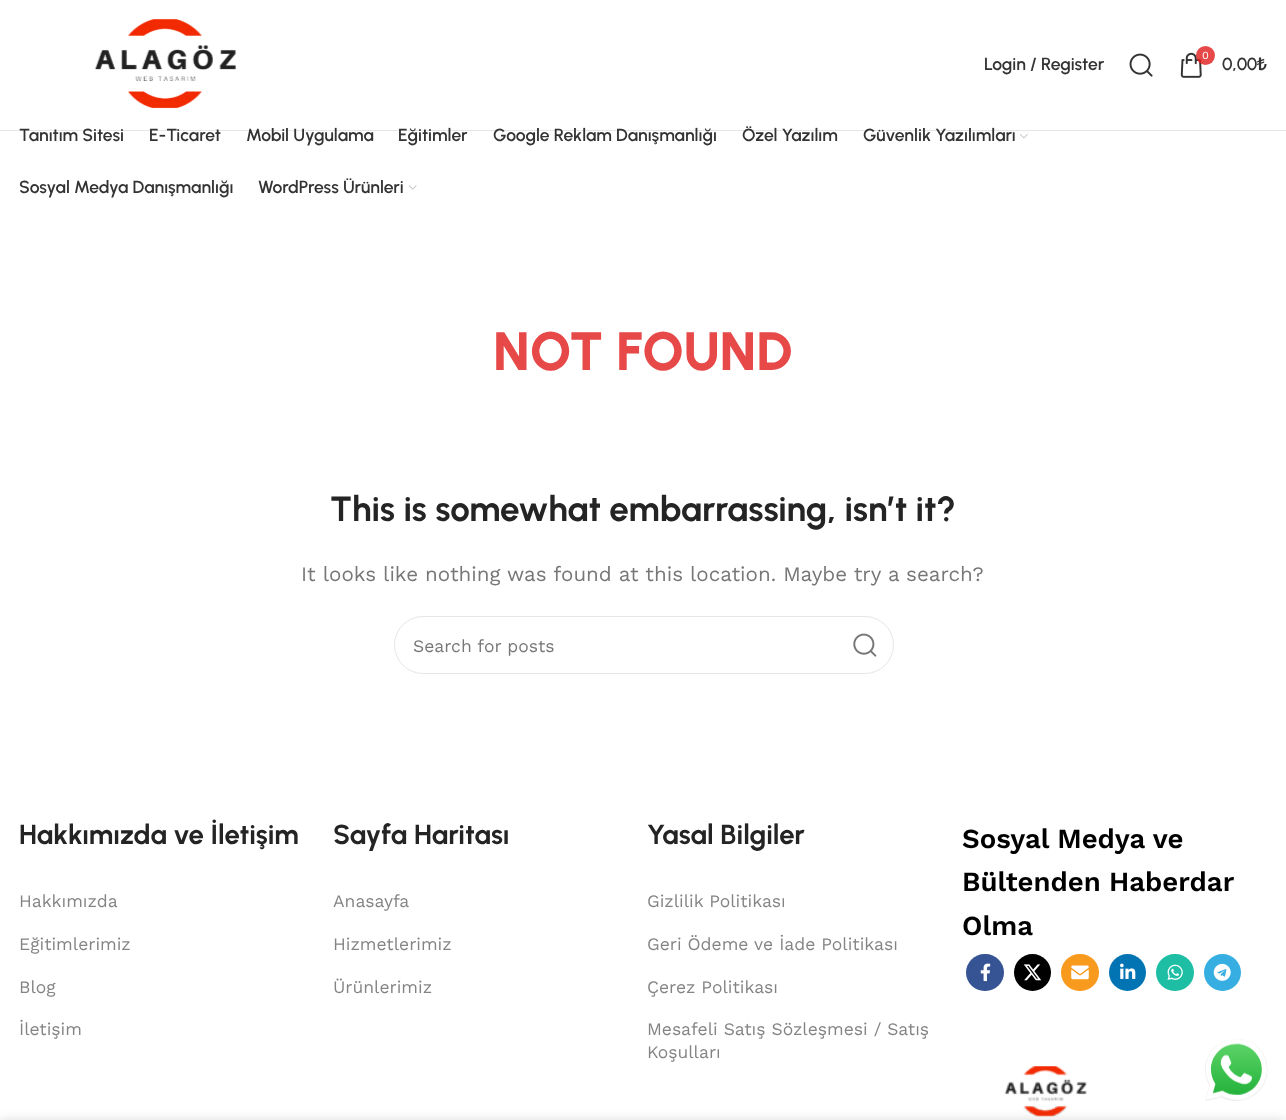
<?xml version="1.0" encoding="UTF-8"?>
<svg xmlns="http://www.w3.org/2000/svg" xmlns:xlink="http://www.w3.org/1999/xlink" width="1286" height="1120">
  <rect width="100%" height="100%" fill="#ffffff" />
  <rect y="130" width="1286" height="1" fill="#e6e6e6" />
  <image x="94" y="19" width="142" height="90" xlink:href="image1.png" />
  <image x="1129" y="53" width="24" height="24" xlink:href="image2.png" />
  <image x="1180" y="52" width="22" height="26" xlink:href="image3.png" />
  <circle cx="1205.5" cy="55.5" r="9.5" fill="#e22424" fill-opacity="0.83" />
  <image x="1020" y="134" width="8" height="5" xlink:href="image4.png" />
  <image x="408" y="185" width="9" height="5" xlink:href="image5.png" />
  <rect x="394.5" y="616.5" width="499" height="57" rx="28.5" fill="none" stroke="#e6e6e6" />
  <image x="853" y="633" width="24" height="24" xlink:href="image6.png" />
  <rect x="966" y="954" width="38" height="37" rx="18.5" fill="#365493" />
  <image x="980" y="963" width="11" height="19" xlink:href="image7.png" />
  <circle cx="1032.5" cy="972.5" r="18.5" fill="#000000" />
  <image x="1023" y="964" width="19" height="17" xlink:href="image8.png" />
  <rect x="1061" y="954" width="38" height="37" rx="18.5" fill="#f89a1e" />
  <image x="1071" y="965" width="18" height="15" xlink:href="image9.png" />
  <circle cx="1127.5" cy="972.5" r="18.5" fill="#0274b3" />
  <image x="1120" y="963" width="16" height="16" xlink:href="image10.png" />
  <rect x="1156" y="954" width="38" height="37" rx="18.5" fill="#1ebea5" />
  <image x="1167" y="964" width="16" height="16" xlink:href="image11.png" />
  <circle cx="1222.5" cy="972.5" r="18.5" fill="#37aee2" />
  <image x="1213" y="963" width="18" height="18" xlink:href="image12.png" />
  <image x="1004" y="1066" width="83" height="51" xlink:href="image13.png" />
  <image x="1205" y="1039" width="63" height="62" xlink:href="image14.png" />
  <rect y="1120" width="1286" height="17" fill="#000000" fill-opacity="0.14" filter="blur(5.5px)" />
  <text x="984" y="70" style="font-family: Urbanist; font-size: 17.5px; font-weight: 600; fill: #333333">Login / Register</text>
  <text x="1202" y="59" style="font-family: Work Sans; font-size: 11px; fill: #ffffff">0</text>
  <text x="1222" y="70" style="font-family: Urbanist; font-size: 17.5px; font-weight: 600; fill: #333333">0,00</text>
  <text x="1257" y="70" style="font-family: Noto Sans; font-size: 17.5px; font-weight: 600; fill: #333333">₺</text>
  <text x="19" y="141" style="font-family: Urbanist; font-size: 17.5px; font-weight: 600; fill: #333333">Tanıtım Sitesi</text>
  <text x="149" y="141" style="font-family: Urbanist; font-size: 17.5px; font-weight: 600; fill: #333333">E-Ticaret</text>
  <text x="246" y="141" style="font-family: Urbanist; font-size: 17.5px; font-weight: 600; fill: #333333">Mobil Uygulama</text>
  <text x="398" y="141" style="font-family: Urbanist; font-size: 17.5px; font-weight: 600; fill: #333333">Eğitimler</text>
  <text x="493" y="141" style="font-family: Urbanist; font-size: 17.5px; font-weight: 600; fill: #333333">Google Reklam Danışmanlığı</text>
  <text x="742" y="141" style="font-family: Urbanist; font-size: 17.5px; font-weight: 600; fill: #333333">Özel Yazılım</text>
  <text x="863" y="141" style="font-family: Urbanist; font-size: 17.5px; font-weight: 600; fill: #333333">Güvenlik Yazılımları</text>
  <text x="19" y="193" style="font-family: Urbanist; font-size: 17.5px; font-weight: 600; fill: #333333">Sosyal Medya Danışmanlığı</text>
  <text x="258" y="193" style="font-family: Urbanist; font-size: 17.5px; font-weight: 600; fill: #333333">WordPress Ürünleri</text>
  <text x="493" y="370" style="font-family: Urbanist; font-size: 54px; font-weight: 800; fill: #e74949">NOT FOUND</text>
  <text x="330" y="521" style="font-family: Urbanist; font-size: 35px; font-weight: bold; fill: #242424">This is somewhat embarrassing, isn’t it?</text>
  <text x="301" y="581" style="font-family: Work Sans; font-size: 20.6px; fill: #777777">It looks like nothing was found at this location. Maybe try a search?</text>
  <text x="413" y="652" style="font-family: Work Sans; font-size: 17.5px; fill: #777777">Search for posts</text>
  <text x="19" y="844" style="font-family: Urbanist; font-size: 27.5px; font-weight: bold; fill: #242424">Hakkımızda ve İletişim</text>
  <text x="19" y="907" style="font-family: Work Sans; font-size: 17.5px; fill: #848484">Hakkımızda</text>
  <text x="19" y="950" style="font-family: Work Sans; font-size: 17.5px; fill: #848484">Eğitimlerimiz</text>
  <text x="19" y="993" style="font-family: Work Sans; font-size: 17.5px; fill: #848484">Blog</text>
  <text x="19" y="1035" style="font-family: Work Sans; font-size: 17.5px; fill: #848484">İletişim</text>
  <text x="333" y="844" style="font-family: Urbanist; font-size: 27.5px; font-weight: bold; fill: #242424">Sayfa Haritası</text>
  <text x="333" y="907" style="font-family: Work Sans; font-size: 17.5px; fill: #848484">Anasayfa</text>
  <text x="333" y="950" style="font-family: Work Sans; font-size: 17.5px; fill: #848484">Hizmetlerimiz</text>
  <text x="333" y="993" style="font-family: Work Sans; font-size: 17.5px; fill: #848484">Ürünlerimiz</text>
  <text x="647" y="844" style="font-family: Urbanist; font-size: 27.5px; font-weight: bold; fill: #242424">Yasal Bilgiler</text>
  <text x="647" y="907" style="font-family: Work Sans; font-size: 17.5px; fill: #848484">Gizlilik Politikası</text>
  <text x="647" y="950" style="font-family: Work Sans; font-size: 17.5px; fill: #848484">Geri Ödeme ve İade Politikası</text>
  <text x="647" y="993" style="font-family: Work Sans; font-size: 17.5px; fill: #848484">Çerez Politikası</text>
  <text x="647" y="1035" style="font-family: Work Sans; font-size: 17.5px; fill: #848484">Mesafeli Satış Sözleşmesi / Satış</text>
  <text x="647" y="1058" style="font-family: Work Sans; font-size: 17.5px; fill: #848484">Koşulları</text>
  <text x="962" y="848" style="font-family: Work Sans; font-size: 27.5px; font-weight: 600; fill: #000000">Sosyal Medya ve</text>
  <text x="962" y="891" style="font-family: Work Sans; font-size: 27.5px; font-weight: 600; fill: #000000">Bültenden Haberdar</text>
  <text x="962" y="935" style="font-family: Work Sans; font-size: 27.5px; font-weight: 600; fill: #000000">Olma</text>
</svg>
